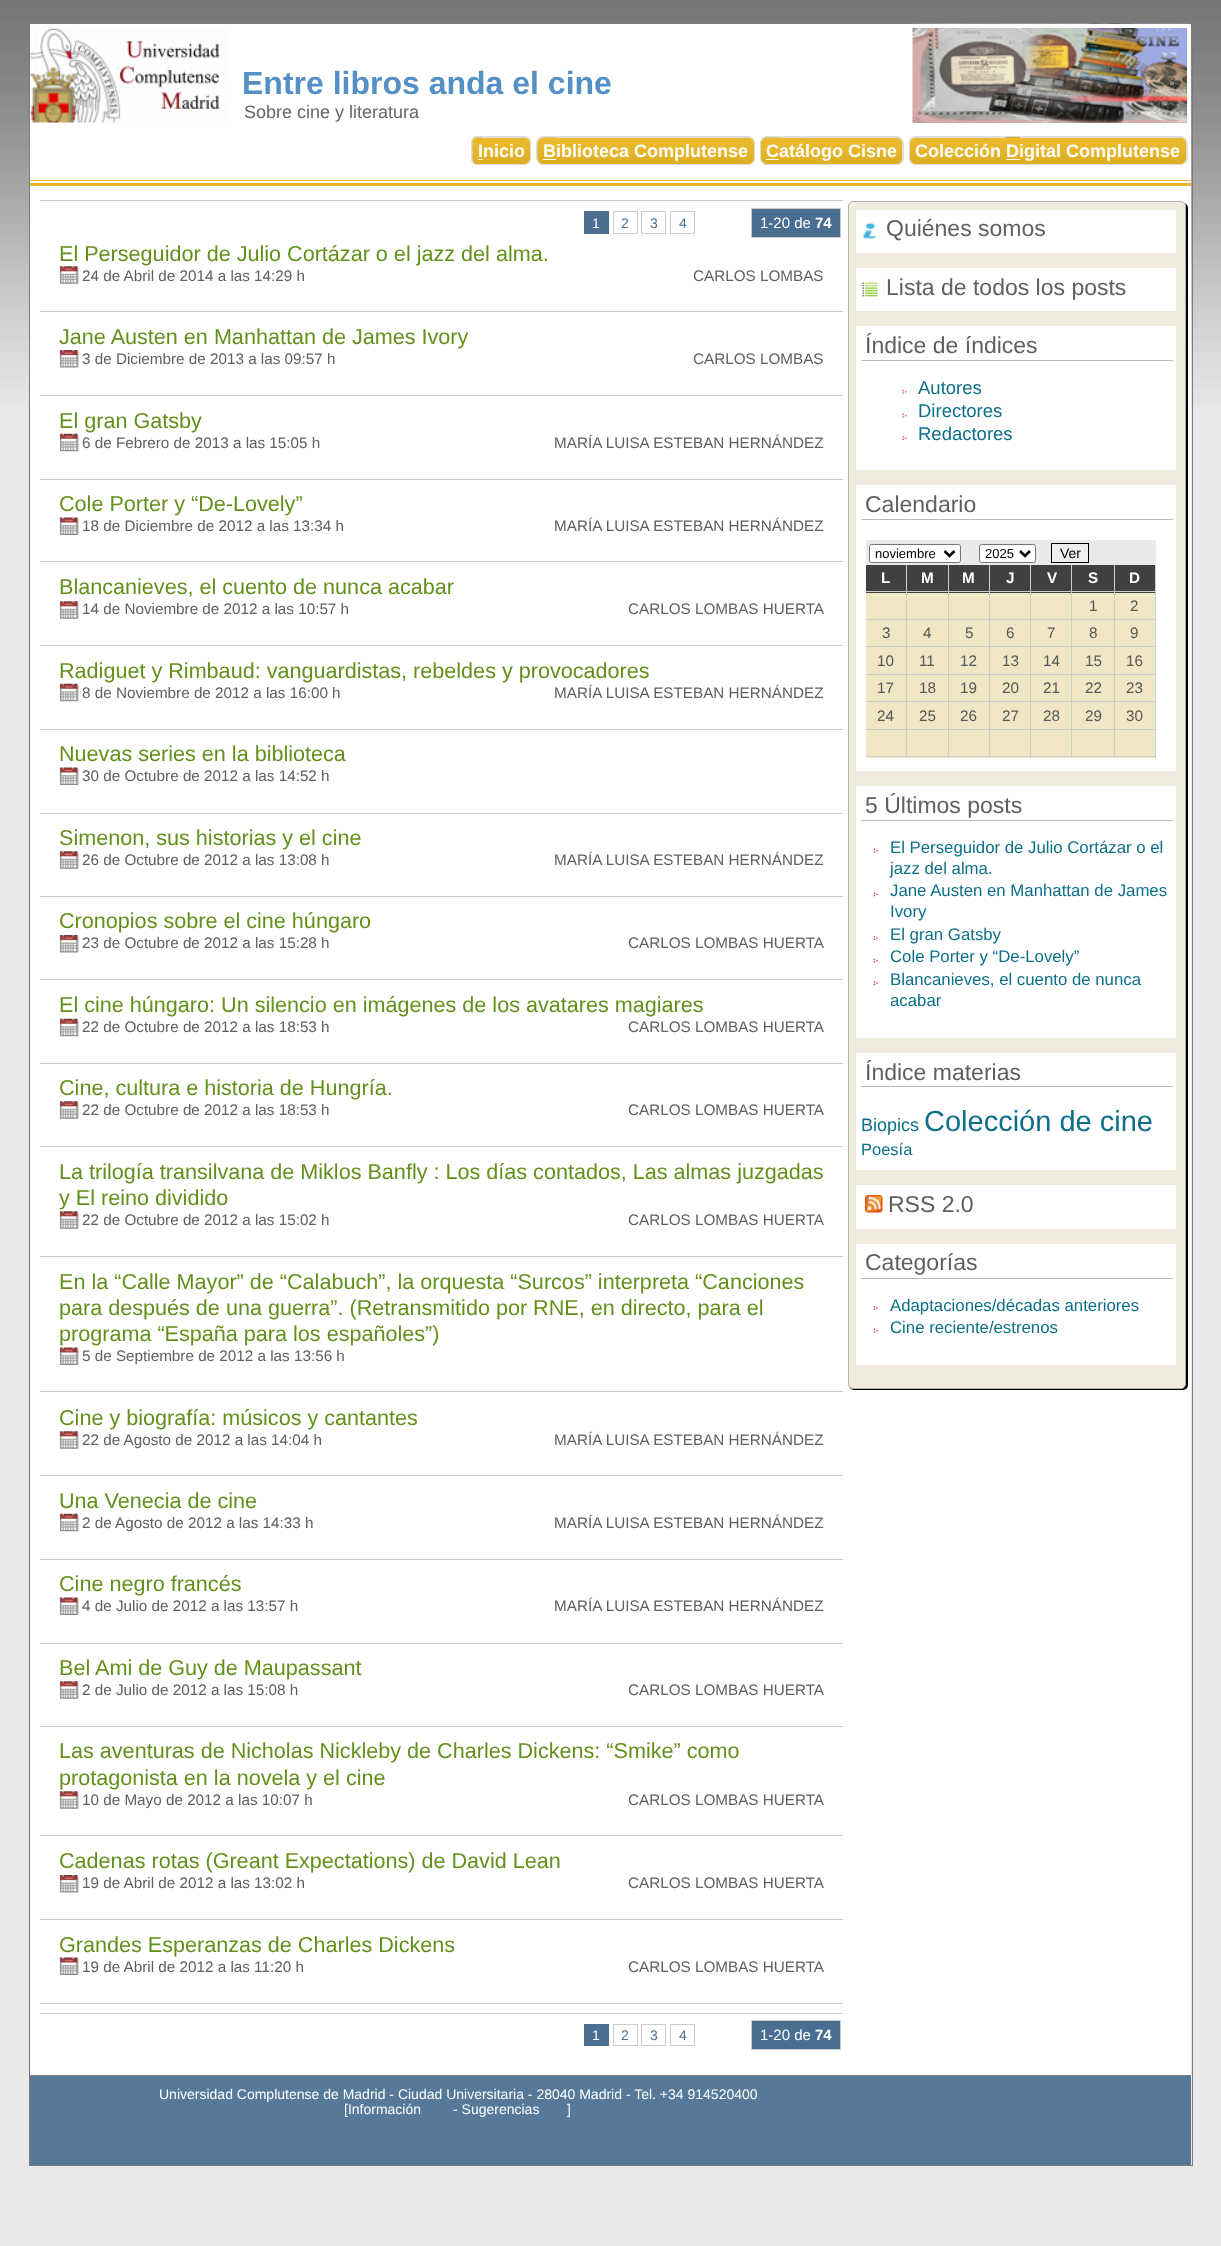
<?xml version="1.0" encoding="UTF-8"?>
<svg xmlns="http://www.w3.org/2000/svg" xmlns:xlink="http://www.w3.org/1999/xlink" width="1221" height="2246">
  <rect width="100%" height="100%" fill="#e9e9ea" />
  <image x="0" y="0" width="1221" height="407" xlink:href="image1.png" />
  <rect x="29.5" y="23.5" width="1163" height="2142" fill="none" stroke="#7c7a7a" />
  <rect x="30" y="24" width="200" height="99" fill="#ffffff" />
  <image x="30" y="28" width="199" height="95" xlink:href="image2.png" />
  <rect x="234" y="28" width="679" height="95" fill="#ffffff" />
  <image x="912" y="23" width="276" height="100" xlink:href="image3.png" />
  <rect x="232" y="26" width="957" height="102" fill="none" stroke="#ffffff" stroke-width="4" />
  <rect x="30" y="123" width="1161" height="57" fill="#ffffff" />
  <rect x="30" y="180" width="1161" height="1" fill="#e7b72a" />
  <image x="471" y="136" width="61" height="29" xlink:href="image4.png" />
  <image x="536" y="136" width="219" height="29" xlink:href="image5.png" />
  <image x="760" y="136" width="144" height="29" xlink:href="image6.png" />
  <image x="908" y="136" width="280" height="29" xlink:href="image7.png" />
  <path d="M 477 136 h 5.5 v 29 h -5.5 c -3 0 -6 -2.5 -6 -5.5 v -17.5 c 0 -3 3 -6 6 -6 z m 0 1.5 h 5.5 v 26.5 h -5.5 c -2.5 0 -4.5 -2 -4.5 -4.5 v -17.5 c 0 -2.5 2 -4.5 4.5 -4.5 z" fill="#dddddd" fill-rule="evenodd" />
  <path d="M 482 136 h 42 c 4 0 7 4 7 8 v 14 c 0 4 -3 7 -7 7 h -42 z m 0 2 h 42 c 3 0 6 2 6 6 v 14 c 0 3 -3 6 -6 6 h -42 z" fill="#dddddd" fill-rule="evenodd" />
  <rect x="478" y="159" width="5" height="1" fill="#ffffff" />
  <path d="M 544 136 h 12 v 29 h -12 c -4.5 0 -8 -3.5 -8 -7.5 v -13.5 c 0 -4.5 3.5 -8 8 -8 z m 0 1.5 h 12 v 26.5 h -12 c -3.5 0 -6.5 -3 -6.5 -6.5 v -13.5 c 0 -3.5 3 -6.5 6.5 -6.5 z" fill="#dddddd" fill-rule="evenodd" />
  <path d="M 556 136 h 192 c 4 0 7 4 7 8 v 14 c 0 4 -3 7 -7 7 h -192 z m 0 2 h 192 c 3 0 6 2 6 6 v 14 c 0 3 -3 6 -6 6 h -192 z" fill="#dddddd" fill-rule="evenodd" />
  <rect x="543" y="159" width="13" height="1" fill="#ffffff" />
  <path d="M 767.5 136 h 11.5 v 29 h -11.5 c -4 0 -7.5 -3.5 -7.5 -7.5 v -13.5 c 0 -4.5 3.5 -8 7.5 -8 z m 0 1.5 h 11.5 v 26.5 h -11.5 c -3.5 0 -6.5 -3 -6.5 -6.5 v -13.5 c 0 -3.5 3 -6.5 6.5 -6.5 z" fill="#dddddd" fill-rule="evenodd" />
  <path d="M 779 136 h 117 c 4 0 8 4 8 8 v 14 c 0 4 -4 7 -8 7 h -117 z m 0 2 h 117 c 4 0 6 2 6 6 v 14 c 0 3 -2 6 -6 6 h -117 z" fill="#dddddd" fill-rule="evenodd" />
  <rect x="766" y="159" width="13" height="1" fill="#ffffff" />
  <path d="M 916 136 h 90 v 29 h -90 c -4 0 -7 -3 -7 -7 v -14 c 0 -4 3 -8 7 -8 z m 0 2 h 90 v 26 h -90 c -3 0 -6 -3 -6 -6 v -14 c 0 -4 3 -6 6 -6 z" fill="#dddddd" fill-rule="evenodd" />
  <rect x="1006" y="136" width="14" height="1" fill="#dddddd" />
  <rect x="1006" y="164" width="14" height="1" fill="#dddddd" />
  <path d="M 1020 136 h 160 c 4 0 8 4 8 8 v 14 c 0 4 -4 7 -8 7 h -160 z m 0 2 h 160 c 3 0 6 2 6 6 v 14 c 0 3 -3 6 -6 6 h -160 z" fill="#dddddd" fill-rule="evenodd" />
  <rect x="1006" y="159" width="14" height="1" fill="#ffffff" />
  <rect x="30" y="181" width="1161" height="1894" fill="#ffffff" />
  <rect x="30" y="183" width="1161" height="3" fill="#e7b72a" />
  <rect x="40" y="200" width="803" height="1" fill="#cccccc" />
  <rect x="584" y="211" width="25" height="23" fill="#496e92" />
  <rect x="613.5" y="211.5" width="24" height="22" fill="none" stroke="#cccccc" />
  <rect x="641.5" y="211.5" width="24" height="22" fill="none" stroke="#cccccc" />
  <rect x="670.5" y="211.5" width="24" height="22" fill="none" stroke="#cccccc" />
  <rect x="751.5" y="208.5" width="89" height="29" fill="#496e92" stroke="#cccccc" />
  <rect x="40" y="311" width="803" height="1" fill="#cccccc" />
  <image x="59" y="266" width="20" height="18" xlink:href="image8.png" />
  <rect x="40" y="395" width="803" height="1" fill="#cccccc" />
  <image x="59" y="350" width="20" height="18" xlink:href="image9.png" />
  <rect x="40" y="479" width="803" height="1" fill="#cccccc" />
  <image x="59" y="433" width="20" height="19" xlink:href="image10.png" />
  <rect x="40" y="561" width="803" height="1" fill="#cccccc" />
  <image x="59" y="517" width="20" height="18" xlink:href="image11.png" />
  <rect x="40" y="645" width="803" height="1" fill="#cccccc" />
  <image x="59" y="601" width="20" height="18" xlink:href="image8.png" />
  <rect x="40" y="729" width="803" height="1" fill="#cccccc" />
  <image x="59" y="683" width="20" height="19" xlink:href="image10.png" />
  <rect x="40" y="813" width="803" height="1" fill="#cccccc" />
  <image x="59" y="767" width="20" height="18" xlink:href="image11.png" />
  <rect x="40" y="896" width="803" height="1" fill="#cccccc" />
  <image x="59" y="851" width="20" height="18" xlink:href="image8.png" />
  <rect x="40" y="979" width="803" height="1" fill="#cccccc" />
  <image x="59" y="935" width="20" height="18" xlink:href="image9.png" />
  <rect x="40" y="1063" width="803" height="1" fill="#cccccc" />
  <image x="59" y="1018" width="20" height="19" xlink:href="image10.png" />
  <rect x="40" y="1146" width="803" height="1" fill="#cccccc" />
  <image x="59" y="1101" width="20" height="18" xlink:href="image8.png" />
  <rect x="40" y="1256" width="803" height="1" fill="#cccccc" />
  <image x="59" y="1211" width="20" height="18" xlink:href="image8.png" />
  <rect x="40" y="1391" width="803" height="1" fill="#cccccc" />
  <image x="59" y="1347" width="20" height="18" xlink:href="image11.png" />
  <rect x="40" y="1475" width="803" height="1" fill="#cccccc" />
  <image x="59" y="1431" width="20" height="18" xlink:href="image8.png" />
  <rect x="40" y="1559" width="803" height="1" fill="#cccccc" />
  <image x="59" y="1513" width="20" height="19" xlink:href="image10.png" />
  <rect x="40" y="1643" width="803" height="1" fill="#cccccc" />
  <image x="59" y="1597" width="20" height="18" xlink:href="image11.png" />
  <rect x="40" y="1726" width="803" height="1" fill="#cccccc" />
  <image x="59" y="1681" width="20" height="18" xlink:href="image8.png" />
  <rect x="40" y="1835" width="803" height="1" fill="#cccccc" />
  <image x="59" y="1791" width="20" height="18" xlink:href="image8.png" />
  <rect x="40" y="1919" width="803" height="1" fill="#cccccc" />
  <image x="59" y="1875" width="20" height="18" xlink:href="image9.png" />
  <rect x="40" y="2003" width="803" height="1" fill="#cccccc" />
  <image x="59" y="1957" width="20" height="18" xlink:href="image11.png" />
  <rect x="40" y="2013" width="803" height="1" fill="#cccccc" />
  <rect x="584" y="2024" width="25" height="22" fill="#496e92" />
  <rect x="613.5" y="2024.5" width="24" height="21" fill="none" stroke="#cccccc" />
  <rect x="641.5" y="2024.5" width="24" height="21" fill="none" stroke="#cccccc" />
  <rect x="670.5" y="2024.5" width="24" height="21" fill="none" stroke="#cccccc" />
  <rect x="751.5" y="2020.5" width="89" height="29" fill="#496e92" stroke="#cccccc" />
  <rect x="849" y="203" width="339" height="1187" rx="5" fill="#000000" filter="blur(0.5px)" />
  <rect x="848.5" y="201.5" width="337" height="1187" rx="4.5" fill="#efecdd" stroke="#b3b1a6" />
  <rect x="856" y="210" width="320" height="43" fill="#ffffff" />
  <image x="862" y="222" width="15" height="17" xlink:href="image12.png" />
  <rect x="856" y="268" width="320" height="43" fill="#ffffff" />
  <image x="862" y="282" width="16" height="15" xlink:href="image13.png" />
  <rect x="856" y="326" width="320" height="144" fill="#ffffff" />
  <rect x="861" y="360" width="312" height="1" fill="#bbbbbb" />
  <image x="902" y="389" width="5" height="5" xlink:href="image14.png" />
  <image x="902" y="413" width="5" height="5" xlink:href="image15.png" />
  <image x="902" y="436" width="5" height="4" xlink:href="image16.png" />
  <rect x="856" y="485" width="320" height="286" fill="#ffffff" />
  <rect x="861" y="519" width="312" height="1" fill="#bbbbbb" />
  <rect x="866" y="540" width="290" height="25" fill="#eaeaea" />
  <rect x="869.5" y="544.5" width="91" height="18" rx="2" fill="#ffffff" stroke="#767676" />
  <path d="M 944.5 551 l 5 5 l 5 -5" fill="none" stroke="#000000" stroke-width="2.5" />
  <rect x="979.5" y="544.5" width="56" height="18" rx="2" fill="#ffffff" stroke="#767676" />
  <path d="M 1020 551 l 5 5 l 5 -5" fill="none" stroke="#000000" stroke-width="2.5" />
  <rect x="1051.5" y="543.5" width="37" height="19" fill="#efefef" stroke="#000000" />
  <rect x="866" y="565" width="82" height="28" fill="#404040" />
  <rect x="906" y="565" width="1" height="28" fill="#cccccc" />
  <rect x="866" y="591" width="42" height="1" fill="#cccccc" />
  <rect x="948" y="565" width="1" height="193" fill="#cccccc" />
  <rect x="908" y="591" width="41" height="1" fill="#cccccc" />
  <rect x="949" y="565" width="40" height="28" fill="#404040" />
  <rect x="989" y="565" width="1" height="193" fill="#cccccc" />
  <rect x="949" y="591" width="41" height="1" fill="#cccccc" />
  <rect x="990" y="565" width="40" height="28" fill="#404040" />
  <rect x="1030" y="565" width="1" height="193" fill="#cccccc" />
  <rect x="990" y="591" width="41" height="1" fill="#cccccc" />
  <rect x="1031" y="565" width="83" height="28" fill="#404040" />
  <rect x="1071" y="565" width="1" height="28" fill="#cccccc" />
  <rect x="1031" y="591" width="42" height="1" fill="#cccccc" />
  <rect x="1114" y="565" width="1" height="193" fill="#cccccc" />
  <rect x="1073" y="591" width="42" height="1" fill="#cccccc" />
  <rect x="1115" y="565" width="40" height="28" fill="#404040" />
  <rect x="1155" y="565" width="1" height="193" fill="#cccccc" />
  <rect x="1115" y="591" width="41" height="1" fill="#cccccc" />
  <rect x="866" y="593" width="82" height="26" fill="#f2e7c5" />
  <rect x="906" y="593" width="1" height="27" fill="#cccccc" />
  <rect x="866" y="619" width="165" height="1" fill="#cccccc" />
  <rect x="949" y="593" width="40" height="26" fill="#f2e7c5" />
  <rect x="990" y="593" width="40" height="26" fill="#f2e7c5" />
  <rect x="1031" y="593" width="83" height="26" fill="#f2e7c5" />
  <rect x="1071" y="593" width="1" height="27" fill="#cccccc" />
  <rect x="1031" y="619" width="125" height="1" fill="#cccccc" />
  <rect x="1115" y="593" width="40" height="26" fill="#f2e7c5" />
  <rect x="866" y="620" width="82" height="28" fill="#f2e7c5" />
  <rect x="906" y="620" width="1" height="28" fill="#cccccc" />
  <rect x="866" y="646" width="83" height="1" fill="#cccccc" />
  <rect x="949" y="620" width="40" height="54" fill="#f2e7c5" />
  <rect x="949" y="646" width="41" height="1" fill="#cccccc" />
  <rect x="990" y="620" width="40" height="54" fill="#f2e7c5" />
  <rect x="990" y="646" width="41" height="1" fill="#cccccc" />
  <rect x="1031" y="620" width="83" height="28" fill="#f2e7c5" />
  <rect x="1071" y="620" width="1" height="28" fill="#cccccc" />
  <rect x="1031" y="646" width="84" height="1" fill="#cccccc" />
  <rect x="1115" y="620" width="40" height="54" fill="#f2e7c5" />
  <rect x="1115" y="646" width="41" height="1" fill="#cccccc" />
  <rect x="866" y="648" width="82" height="26" fill="#f2e7c5" />
  <rect x="906" y="648" width="1" height="27" fill="#cccccc" />
  <rect x="866" y="674" width="165" height="1" fill="#cccccc" />
  <rect x="1031" y="648" width="83" height="26" fill="#f2e7c5" />
  <rect x="1071" y="648" width="1" height="27" fill="#cccccc" />
  <rect x="1031" y="674" width="125" height="1" fill="#cccccc" />
  <rect x="866" y="675" width="82" height="28" fill="#f2e7c5" />
  <rect x="906" y="675" width="1" height="28" fill="#cccccc" />
  <rect x="866" y="701" width="83" height="1" fill="#cccccc" />
  <rect x="949" y="675" width="40" height="54" fill="#f2e7c5" />
  <rect x="949" y="701" width="41" height="1" fill="#cccccc" />
  <rect x="990" y="675" width="40" height="54" fill="#f2e7c5" />
  <rect x="990" y="701" width="41" height="1" fill="#cccccc" />
  <rect x="1031" y="675" width="83" height="28" fill="#f2e7c5" />
  <rect x="1071" y="675" width="1" height="28" fill="#cccccc" />
  <rect x="1031" y="701" width="84" height="1" fill="#cccccc" />
  <rect x="1115" y="675" width="40" height="54" fill="#f2e7c5" />
  <rect x="1115" y="701" width="41" height="1" fill="#cccccc" />
  <rect x="866" y="703" width="82" height="26" fill="#f2e7c5" />
  <rect x="906" y="703" width="1" height="27" fill="#cccccc" />
  <rect x="866" y="729" width="165" height="1" fill="#cccccc" />
  <rect x="1031" y="703" width="83" height="26" fill="#f2e7c5" />
  <rect x="1071" y="703" width="1" height="27" fill="#cccccc" />
  <rect x="1031" y="729" width="125" height="1" fill="#cccccc" />
  <rect x="866" y="730" width="82" height="28" fill="#f2e7c5" />
  <rect x="906" y="730" width="1" height="28" fill="#cccccc" />
  <rect x="866" y="756" width="83" height="1" fill="#cccccc" />
  <rect x="949" y="730" width="40" height="28" fill="#f2e7c5" />
  <rect x="949" y="756" width="41" height="1" fill="#cccccc" />
  <rect x="990" y="730" width="40" height="28" fill="#f2e7c5" />
  <rect x="990" y="756" width="41" height="1" fill="#cccccc" />
  <rect x="1031" y="730" width="83" height="28" fill="#f2e7c5" />
  <rect x="1071" y="730" width="1" height="28" fill="#cccccc" />
  <rect x="1031" y="756" width="84" height="1" fill="#cccccc" />
  <rect x="1115" y="730" width="40" height="28" fill="#f2e7c5" />
  <rect x="1115" y="756" width="41" height="1" fill="#cccccc" />
  <rect x="856" y="786" width="320" height="252" fill="#ffffff" />
  <rect x="861" y="820" width="312" height="1" fill="#bbbbbb" />
  <image x="873" y="848" width="5" height="5" xlink:href="image17.png" />
  <image x="873" y="892" width="5" height="5" xlink:href="image18.png" />
  <image x="873" y="936" width="5" height="4" xlink:href="image19.png" />
  <image x="873" y="958" width="5" height="5" xlink:href="image17.png" />
  <image x="873" y="981" width="5" height="4" xlink:href="image19.png" />
  <rect x="856" y="1053" width="320" height="117" fill="#ffffff" />
  <rect x="861" y="1086" width="312" height="1" fill="#bbbbbb" />
  <rect x="856" y="1185" width="320" height="44" fill="#ffffff" />
  <image x="865" y="1195" width="18" height="18" xlink:href="image20.png" />
  <rect x="856" y="1244" width="320" height="121" fill="#ffffff" />
  <rect x="861" y="1278" width="312" height="1" fill="#bbbbbb" />
  <image x="873" y="1306" width="5" height="4" xlink:href="image19.png" />
  <image x="873" y="1328" width="5" height="5" xlink:href="image17.png" />
  <rect x="30" y="2076" width="1161" height="89" fill="#56799a" />
  <rect x="30" y="2075" width="1161" height="1" fill="#7c7a7a" />
  <text x="242" y="94" style="font-family: Liberation Sans; font-size: 32px; font-weight: bold; fill: #548fc6">Entre libros anda el cine</text>
  <text x="244" y="118" style="font-family: Liberation Sans; font-size: 18px; fill: #666666">Sobre cine y literatura</text>
  <text x="478" y="157" style="font-family: Liberation Sans; font-size: 18px; font-weight: bold; fill: #ffffff">Inicio</text>
  <text x="543" y="157" style="font-family: Liberation Sans; font-size: 18px; font-weight: bold; fill: #ffffff">Biblioteca Complutense</text>
  <text x="766" y="157" style="font-family: Liberation Sans; font-size: 18px; font-weight: bold; fill: #ffffff">Catálogo Cisne</text>
  <text x="915" y="157" style="font-family: Liberation Sans; font-size: 18px; font-weight: bold; fill: #ffffff">Colección Digital Complutense</text>
  <text x="592" y="228" style="font-family: Liberation Sans; font-size: 14px; fill: #ffffff">1</text>
  <text x="621" y="228" style="font-family: Liberation Sans; font-size: 14px; fill: #496e92">2</text>
  <text x="650" y="228" style="font-family: Liberation Sans; font-size: 14px; fill: #496e92">3</text>
  <text x="679" y="228" style="font-family: Liberation Sans; font-size: 14px; fill: #496e92">4</text>
  <text x="760" y="228" style="font-family: Liberation Sans; font-size: 15px; fill: #ffffff">1-20 de</text>
  <text x="815" y="228" style="font-family: Liberation Sans; font-size: 15px; font-weight: bold; fill: #ffffff">74</text>
  <text x="59" y="261" style="font-family: Liberation Sans; font-size: 21.6px; fill: #63901b">El Perseguidor de Julio Cortázar o el jazz del alma.</text>
  <text x="82" y="281" style="font-family: Liberation Sans; font-size: 15.25px; fill: #606060">24 de Abril de 2014 a las 14:29 h</text>
  <text x="693" y="281" style="font-family: Liberation Sans; font-size: 15.25px; fill: #606060">CARLOS LOMBAS</text>
  <text x="59" y="344" style="font-family: Liberation Sans; font-size: 21.6px; fill: #63901b">Jane Austen en Manhattan de James Ivory</text>
  <text x="82" y="364" style="font-family: Liberation Sans; font-size: 15.25px; fill: #606060">3 de Diciembre de 2013 a las 09:57 h</text>
  <text x="693" y="364" style="font-family: Liberation Sans; font-size: 15.25px; fill: #606060">CARLOS LOMBAS</text>
  <text x="59" y="428" style="font-family: Liberation Sans; font-size: 21.6px; fill: #63901b">El gran Gatsby</text>
  <text x="82" y="448" style="font-family: Liberation Sans; font-size: 15.25px; fill: #606060">6 de Febrero de 2013 a las 15:05 h</text>
  <text x="554" y="448" style="font-family: Liberation Sans; font-size: 15.25px; fill: #606060">MARÍA LUISA ESTEBAN HERNÁNDEZ</text>
  <text x="59" y="511" style="font-family: Liberation Sans; font-size: 21.6px; fill: #63901b">Cole Porter y “De-Lovely”</text>
  <text x="82" y="531" style="font-family: Liberation Sans; font-size: 15.25px; fill: #606060">18 de Diciembre de 2012 a las 13:34 h</text>
  <text x="554" y="531" style="font-family: Liberation Sans; font-size: 15.25px; fill: #606060">MARÍA LUISA ESTEBAN HERNÁNDEZ</text>
  <text x="59" y="594" style="font-family: Liberation Sans; font-size: 21.6px; fill: #63901b">Blancanieves, el cuento de nunca acabar</text>
  <text x="82" y="614" style="font-family: Liberation Sans; font-size: 15.25px; fill: #606060">14 de Noviembre de 2012 a las 10:57 h</text>
  <text x="628" y="614" style="font-family: Liberation Sans; font-size: 15.25px; fill: #606060">CARLOS LOMBAS HUERTA</text>
  <text x="59" y="678" style="font-family: Liberation Sans; font-size: 21.6px; fill: #63901b">Radiguet y Rimbaud: vanguardistas, rebeldes y provocadores</text>
  <text x="82" y="698" style="font-family: Liberation Sans; font-size: 15.25px; fill: #606060">8 de Noviembre de 2012 a las 16:00 h</text>
  <text x="554" y="698" style="font-family: Liberation Sans; font-size: 15.25px; fill: #606060">MARÍA LUISA ESTEBAN HERNÁNDEZ</text>
  <text x="59" y="761" style="font-family: Liberation Sans; font-size: 21.6px; fill: #63901b">Nuevas series en la biblioteca</text>
  <text x="82" y="781" style="font-family: Liberation Sans; font-size: 15.25px; fill: #606060">30 de Octubre de 2012 a las 14:52 h</text>
  <text x="59" y="845" style="font-family: Liberation Sans; font-size: 21.6px; fill: #63901b">Simenon, sus historias y el cine</text>
  <text x="82" y="865" style="font-family: Liberation Sans; font-size: 15.25px; fill: #606060">26 de Octubre de 2012 a las 13:08 h</text>
  <text x="554" y="865" style="font-family: Liberation Sans; font-size: 15.25px; fill: #606060">MARÍA LUISA ESTEBAN HERNÁNDEZ</text>
  <text x="59" y="928" style="font-family: Liberation Sans; font-size: 21.6px; fill: #63901b">Cronopios sobre el cine húngaro</text>
  <text x="82" y="948" style="font-family: Liberation Sans; font-size: 15.25px; fill: #606060">23 de Octubre de 2012 a las 15:28 h</text>
  <text x="628" y="948" style="font-family: Liberation Sans; font-size: 15.25px; fill: #606060">CARLOS LOMBAS HUERTA</text>
  <text x="59" y="1012" style="font-family: Liberation Sans; font-size: 21.6px; fill: #63901b">El cine húngaro: Un silencio en imágenes de los avatares magiares</text>
  <text x="82" y="1032" style="font-family: Liberation Sans; font-size: 15.25px; fill: #606060">22 de Octubre de 2012 a las 18:53 h</text>
  <text x="628" y="1032" style="font-family: Liberation Sans; font-size: 15.25px; fill: #606060">CARLOS LOMBAS HUERTA</text>
  <text x="59" y="1095" style="font-family: Liberation Sans; font-size: 21.6px; fill: #63901b">Cine, cultura e historia de Hungría.</text>
  <text x="82" y="1115" style="font-family: Liberation Sans; font-size: 15.25px; fill: #606060">22 de Octubre de 2012 a las 18:53 h</text>
  <text x="628" y="1115" style="font-family: Liberation Sans; font-size: 15.25px; fill: #606060">CARLOS LOMBAS HUERTA</text>
  <text x="59" y="1179" style="font-family: Liberation Sans; font-size: 21.6px; fill: #63901b">La trilogía transilvana de Miklos Banfly : Los días contados, Las almas juzgadas</text>
  <text x="59" y="1205" style="font-family: Liberation Sans; font-size: 21.6px; fill: #63901b">y El reino dividido</text>
  <text x="82" y="1225" style="font-family: Liberation Sans; font-size: 15.25px; fill: #606060">22 de Octubre de 2012 a las 15:02 h</text>
  <text x="628" y="1225" style="font-family: Liberation Sans; font-size: 15.25px; fill: #606060">CARLOS LOMBAS HUERTA</text>
  <text x="59" y="1289" style="font-family: Liberation Sans; font-size: 21.6px; fill: #63901b">En la “Calle Mayor” de “Calabuch”, la orquesta “Surcos” interpreta “Canciones</text>
  <text x="59" y="1315" style="font-family: Liberation Sans; font-size: 21.6px; fill: #63901b">para después de una guerra”. (Retransmitido por RNE, en directo, para el</text>
  <text x="59" y="1341" style="font-family: Liberation Sans; font-size: 21.6px; fill: #63901b">programa “España para los españoles”)</text>
  <text x="82" y="1361" style="font-family: Liberation Sans; font-size: 15.25px; fill: #606060">5 de Septiembre de 2012 a las 13:56 h</text>
  <text x="59" y="1425" style="font-family: Liberation Sans; font-size: 21.6px; fill: #63901b">Cine y biografía: músicos y cantantes</text>
  <text x="82" y="1445" style="font-family: Liberation Sans; font-size: 15.25px; fill: #606060">22 de Agosto de 2012 a las 14:04 h</text>
  <text x="554" y="1445" style="font-family: Liberation Sans; font-size: 15.25px; fill: #606060">MARÍA LUISA ESTEBAN HERNÁNDEZ</text>
  <text x="59" y="1508" style="font-family: Liberation Sans; font-size: 21.6px; fill: #63901b">Una Venecia de cine</text>
  <text x="82" y="1528" style="font-family: Liberation Sans; font-size: 15.25px; fill: #606060">2 de Agosto de 2012 a las 14:33 h</text>
  <text x="554" y="1528" style="font-family: Liberation Sans; font-size: 15.25px; fill: #606060">MARÍA LUISA ESTEBAN HERNÁNDEZ</text>
  <text x="59" y="1591" style="font-family: Liberation Sans; font-size: 21.6px; fill: #63901b">Cine negro francés</text>
  <text x="82" y="1611" style="font-family: Liberation Sans; font-size: 15.25px; fill: #606060">4 de Julio de 2012 a las 13:57 h</text>
  <text x="554" y="1611" style="font-family: Liberation Sans; font-size: 15.25px; fill: #606060">MARÍA LUISA ESTEBAN HERNÁNDEZ</text>
  <text x="59" y="1675" style="font-family: Liberation Sans; font-size: 21.6px; fill: #63901b">Bel Ami de Guy de Maupassant</text>
  <text x="82" y="1695" style="font-family: Liberation Sans; font-size: 15.25px; fill: #606060">2 de Julio de 2012 a las 15:08 h</text>
  <text x="628" y="1695" style="font-family: Liberation Sans; font-size: 15.25px; fill: #606060">CARLOS LOMBAS HUERTA</text>
  <text x="59" y="1758" style="font-family: Liberation Sans; font-size: 21.6px; fill: #63901b">Las aventuras de Nicholas Nickleby de Charles Dickens: “Smike” como</text>
  <text x="59" y="1785" style="font-family: Liberation Sans; font-size: 21.6px; fill: #63901b">protagonista en la novela y el cine</text>
  <text x="82" y="1805" style="font-family: Liberation Sans; font-size: 15.25px; fill: #606060">10 de Mayo de 2012 a las 10:07 h</text>
  <text x="628" y="1805" style="font-family: Liberation Sans; font-size: 15.25px; fill: #606060">CARLOS LOMBAS HUERTA</text>
  <text x="59" y="1868" style="font-family: Liberation Sans; font-size: 21.6px; fill: #63901b">Cadenas rotas (Greant Expectations) de David Lean</text>
  <text x="82" y="1888" style="font-family: Liberation Sans; font-size: 15.25px; fill: #606060">19 de Abril de 2012 a las 13:02 h</text>
  <text x="628" y="1888" style="font-family: Liberation Sans; font-size: 15.25px; fill: #606060">CARLOS LOMBAS HUERTA</text>
  <text x="59" y="1952" style="font-family: Liberation Sans; font-size: 21.6px; fill: #63901b">Grandes Esperanzas de Charles Dickens</text>
  <text x="82" y="1972" style="font-family: Liberation Sans; font-size: 15.25px; fill: #606060">19 de Abril de 2012 a las 11:20 h</text>
  <text x="628" y="1972" style="font-family: Liberation Sans; font-size: 15.25px; fill: #606060">CARLOS LOMBAS HUERTA</text>
  <text x="592" y="2040" style="font-family: Liberation Sans; font-size: 14px; fill: #ffffff">1</text>
  <text x="621" y="2040" style="font-family: Liberation Sans; font-size: 14px; fill: #496e92">2</text>
  <text x="650" y="2040" style="font-family: Liberation Sans; font-size: 14px; fill: #496e92">3</text>
  <text x="679" y="2040" style="font-family: Liberation Sans; font-size: 14px; fill: #496e92">4</text>
  <text x="760" y="2040" style="font-family: Liberation Sans; font-size: 15px; fill: #ffffff">1-20 de</text>
  <text x="815" y="2040" style="font-family: Liberation Sans; font-size: 15px; font-weight: bold; fill: #ffffff">74</text>
  <text x="886" y="236" style="font-family: Liberation Sans; font-size: 23px; fill: #606060">Quiénes somos</text>
  <text x="886" y="295" style="font-family: Liberation Sans; font-size: 23px; fill: #606060">Lista de todos los posts</text>
  <text x="865" y="353" style="font-family: Liberation Sans; font-size: 23px; fill: #606060">Índice de índices</text>
  <text x="918" y="394" style="font-family: Liberation Sans; font-size: 18.5px; fill: #0d6f89">Autores</text>
  <text x="918" y="417" style="font-family: Liberation Sans; font-size: 18.5px; fill: #0d6f89">Directores</text>
  <text x="918" y="440" style="font-family: Liberation Sans; font-size: 18.5px; fill: #0d6f89">Redactores</text>
  <text x="865" y="512" style="font-family: Liberation Sans; font-size: 23px; fill: #606060">Calendario</text>
  <text x="875" y="558" style="font-family: Liberation Sans; font-size: 13px; fill: #000000">noviembre</text>
  <text x="985" y="558" style="font-family: Liberation Sans; font-size: 13px; fill: #000000">2025</text>
  <text x="1060" y="558" style="font-family: Liberation Sans; font-size: 14px; fill: #000000">Ver</text>
  <text x="881" y="583" style="font-family: Liberation Sans; font-size: 15.25px; font-weight: bold; fill: #ffffff">L</text>
  <text x="921" y="583" style="font-family: Liberation Sans; font-size: 15.25px; font-weight: bold; fill: #ffffff">M</text>
  <text x="962" y="583" style="font-family: Liberation Sans; font-size: 15.25px; font-weight: bold; fill: #ffffff">M</text>
  <text x="1006" y="583" style="font-family: Liberation Sans; font-size: 15.25px; font-weight: bold; fill: #ffffff">J</text>
  <text x="1047" y="583" style="font-family: Liberation Sans; font-size: 15.25px; font-weight: bold; fill: #ffffff">V</text>
  <text x="1088" y="583" style="font-family: Liberation Sans; font-size: 15.25px; font-weight: bold; fill: #ffffff">S</text>
  <text x="1129" y="583" style="font-family: Liberation Sans; font-size: 15.25px; font-weight: bold; fill: #ffffff">D</text>
  <text x="1089" y="611" style="font-family: Liberation Sans; font-size: 15.25px; fill: #575757">1</text>
  <text x="1130" y="611" style="font-family: Liberation Sans; font-size: 15.25px; fill: #575757">2</text>
  <text x="882" y="638" style="font-family: Liberation Sans; font-size: 15.25px; fill: #575757">3</text>
  <text x="923" y="638" style="font-family: Liberation Sans; font-size: 15.25px; fill: #575757">4</text>
  <text x="965" y="638" style="font-family: Liberation Sans; font-size: 15.25px; fill: #575757">5</text>
  <text x="1006" y="638" style="font-family: Liberation Sans; font-size: 15.25px; fill: #575757">6</text>
  <text x="1047" y="638" style="font-family: Liberation Sans; font-size: 15.25px; fill: #575757">7</text>
  <text x="1089" y="638" style="font-family: Liberation Sans; font-size: 15.25px; fill: #575757">8</text>
  <text x="1130" y="638" style="font-family: Liberation Sans; font-size: 15.25px; fill: #575757">9</text>
  <text x="877" y="666" style="font-family: Liberation Sans; font-size: 15.25px; fill: #575757">10</text>
  <text x="919" y="666" style="font-family: Liberation Sans; font-size: 15.25px; fill: #575757">11</text>
  <text x="960" y="666" style="font-family: Liberation Sans; font-size: 15.25px; fill: #575757">12</text>
  <text x="1002" y="666" style="font-family: Liberation Sans; font-size: 15.25px; fill: #575757">13</text>
  <text x="1043" y="666" style="font-family: Liberation Sans; font-size: 15.25px; fill: #575757">14</text>
  <text x="1085" y="666" style="font-family: Liberation Sans; font-size: 15.25px; fill: #575757">15</text>
  <text x="1126" y="666" style="font-family: Liberation Sans; font-size: 15.25px; fill: #575757">16</text>
  <text x="877" y="693" style="font-family: Liberation Sans; font-size: 15.25px; fill: #575757">17</text>
  <text x="919" y="693" style="font-family: Liberation Sans; font-size: 15.25px; fill: #575757">18</text>
  <text x="960" y="693" style="font-family: Liberation Sans; font-size: 15.25px; fill: #575757">19</text>
  <text x="1002" y="693" style="font-family: Liberation Sans; font-size: 15.25px; fill: #575757">20</text>
  <text x="1043" y="693" style="font-family: Liberation Sans; font-size: 15.25px; fill: #575757">21</text>
  <text x="1085" y="693" style="font-family: Liberation Sans; font-size: 15.25px; fill: #575757">22</text>
  <text x="1126" y="693" style="font-family: Liberation Sans; font-size: 15.25px; fill: #575757">23</text>
  <text x="877" y="721" style="font-family: Liberation Sans; font-size: 15.25px; fill: #575757">24</text>
  <text x="919" y="721" style="font-family: Liberation Sans; font-size: 15.25px; fill: #575757">25</text>
  <text x="960" y="721" style="font-family: Liberation Sans; font-size: 15.25px; fill: #575757">26</text>
  <text x="1002" y="721" style="font-family: Liberation Sans; font-size: 15.25px; fill: #575757">27</text>
  <text x="1043" y="721" style="font-family: Liberation Sans; font-size: 15.25px; fill: #575757">28</text>
  <text x="1085" y="721" style="font-family: Liberation Sans; font-size: 15.25px; fill: #575757">29</text>
  <text x="1126" y="721" style="font-family: Liberation Sans; font-size: 15.25px; fill: #575757">30</text>
  <text x="865" y="813" style="font-family: Liberation Sans; font-size: 23px; fill: #606060">5 Últimos posts</text>
  <text x="890" y="853" style="font-family: Liberation Sans; font-size: 16.8px; fill: #0d6f89">El Perseguidor de Julio Cortázar o el</text>
  <text x="890" y="874" style="font-family: Liberation Sans; font-size: 16.8px; fill: #0d6f89">jazz del alma.</text>
  <text x="890" y="896" style="font-family: Liberation Sans; font-size: 16.8px; fill: #0d6f89">Jane Austen en Manhattan de James</text>
  <text x="890" y="917" style="font-family: Liberation Sans; font-size: 16.8px; fill: #0d6f89">Ivory</text>
  <text x="890" y="940" style="font-family: Liberation Sans; font-size: 16.8px; fill: #0d6f89">El gran Gatsby</text>
  <text x="890" y="962" style="font-family: Liberation Sans; font-size: 16.8px; fill: #0d6f89">Cole Porter y “De-Lovely”</text>
  <text x="890" y="985" style="font-family: Liberation Sans; font-size: 16.8px; fill: #0d6f89">Blancanieves, el cuento de nunca</text>
  <text x="890" y="1006" style="font-family: Liberation Sans; font-size: 16.8px; fill: #0d6f89">acabar</text>
  <text x="865" y="1080" style="font-family: Liberation Sans; font-size: 23px; fill: #606060">Índice materias</text>
  <text x="861" y="1131" style="font-family: Liberation Sans; font-size: 18px; fill: #0d6f89">Biopics</text>
  <text x="924" y="1131" style="font-family: Liberation Sans; font-size: 29px; fill: #0d6f89">Colección de cine</text>
  <text x="861" y="1155" style="font-family: Liberation Sans; font-size: 16.5px; fill: #0d6f89">Poesía</text>
  <text x="888" y="1212" style="font-family: Liberation Sans; font-size: 23px; fill: #606060">RSS 2.0</text>
  <text x="865" y="1270" style="font-family: Liberation Sans; font-size: 23px; fill: #606060">Categorías</text>
  <text x="890" y="1311" style="font-family: Liberation Sans; font-size: 16.8px; fill: #0d6f89">Adaptaciones/décadas anteriores</text>
  <text x="890" y="1333" style="font-family: Liberation Sans; font-size: 16.8px; fill: #0d6f89">Cine reciente/estrenos</text>
  <text x="159" y="2099" style="font-family: Liberation Sans; font-size: 14px; fill: #ffffff">Universidad Complutense de Madrid - Ciudad Universitaria - 28040 Madrid - Tel. +34 914520400</text>
  <text x="344" y="2114" style="font-family: Liberation Sans; font-size: 14px; fill: #ffffff">[Información</text>
  <text x="453" y="2114" style="font-family: Liberation Sans; font-size: 14px; fill: #ffffff">- Sugerencias</text>
  <text x="567" y="2114" style="font-family: Liberation Sans; font-size: 14px; fill: #ffffff">]</text>
</svg>
